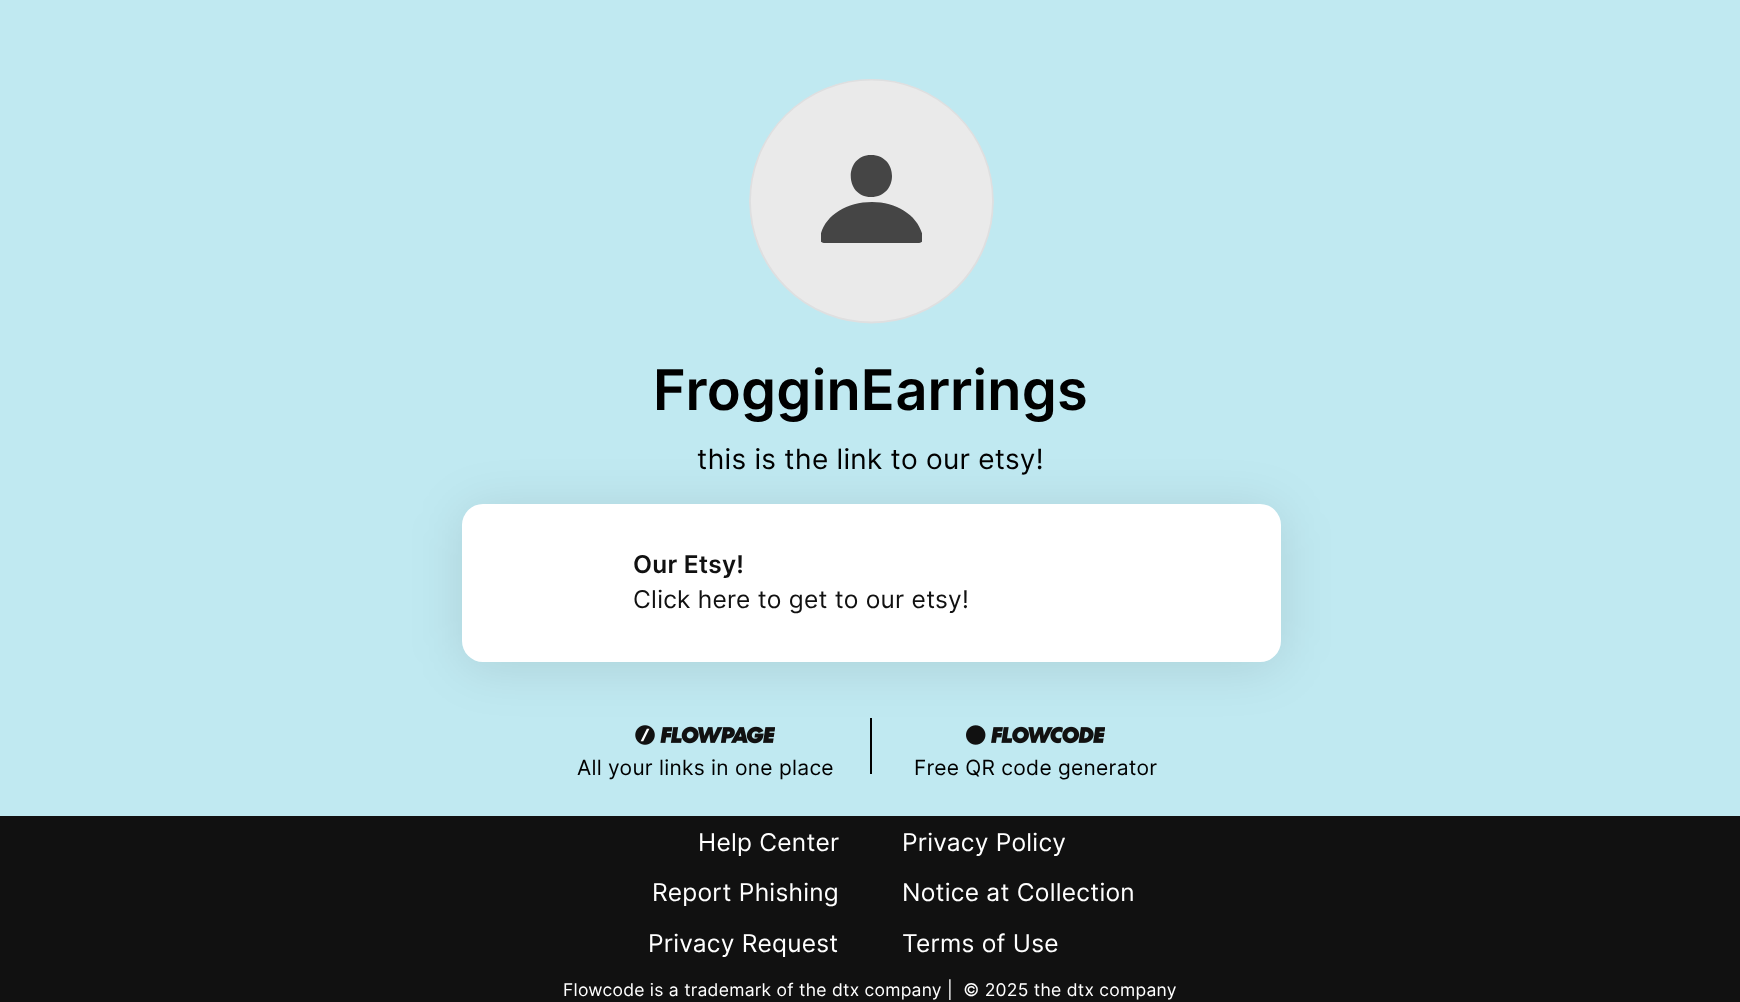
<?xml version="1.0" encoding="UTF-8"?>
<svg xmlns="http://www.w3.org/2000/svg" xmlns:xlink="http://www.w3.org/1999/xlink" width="1740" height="1002">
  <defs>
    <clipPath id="clip1"><rect x="749" y="79" width="245" height="245" rx="122.5" /></clipPath>
    <clipPath id="clip2"><rect x="821" y="151" width="101" height="101" /></clipPath>
  </defs>
  <rect width="100%" height="100%" fill="#c0e9f1" />
  <circle cx="871.5" cy="201" r="121.5" fill="#eaeaea" />
  <g clip-path="url(#clip1)">
    <circle cx="871.5" cy="201" r="121.5" fill="none" stroke="#dedfe0" stroke-width="1.9" />
  </g>
  <g clip-path="url(#clip2)">
    <path d="M 871 197 c 28 0 28 -42 0 -42 c -27 0 -27 42 0 42 z m -51 41 c 3 -21 25 -36 52 -36 c 26 0 48 15 51 36 c 1 3 -2 5 -5 5 h -93 c -3 0 -6 -2 -5 -5 z" fill="#454545" fill-rule="evenodd" />
  </g>
  <rect x="462" y="509" width="819" height="158" rx="21" fill="#000000" fill-opacity="0.1" filter="blur(26px)" />
  <rect x="462" y="504" width="819" height="158" rx="21" fill="#ffffff" />
  <image x="635" y="725" width="140" height="20" xlink:href="image1.png" />
  <rect x="870" y="718" width="2" height="56" fill="#000000" />
  <image x="966" y="725" width="139" height="20" xlink:href="image2.png" />
  <rect y="816" width="1740" height="186" fill="#111111" />
  <text x="653" y="410" style="font-family: Inter; font-size: 56px; font-weight: 600; letter-spacing: 0.25px; fill: #000000">FrogginEarrings</text>
  <text x="697" y="469" style="font-family: Inter; font-size: 28px; letter-spacing: 0.25px; fill: #000000">this is the link to our etsy!</text>
  <text x="633" y="573" style="font-family: Inter; font-size: 24.5px; font-weight: 600; letter-spacing: 0.25px; fill: #111111">Our Etsy!</text>
  <text x="633" y="608" style="font-family: Inter; font-size: 24.5px; letter-spacing: 0.25px; fill: #111111">Click here to get to our etsy!</text>
  <text x="577" y="775" style="font-family: Inter; font-size: 21px; letter-spacing: 0.25px; fill: #000000">All your links in one place</text>
  <text x="914" y="775" style="font-family: Inter; font-size: 21px; letter-spacing: 0.25px; fill: #000000">Free QR code generator</text>
  <text x="698" y="851" style="font-family: Inter; font-size: 24.5px; letter-spacing: 0.25px; fill: #ffffff">Help Center</text>
  <text x="652" y="901" style="font-family: Inter; font-size: 24.5px; letter-spacing: 0.25px; fill: #ffffff">Report Phishing</text>
  <text x="648" y="952" style="font-family: Inter; font-size: 24.5px; letter-spacing: 0.25px; fill: #ffffff">Privacy Request</text>
  <text x="902" y="851" style="font-family: Inter; font-size: 24.5px; letter-spacing: 0.25px; fill: #ffffff">Privacy Policy</text>
  <text x="902" y="901" style="font-family: Inter; font-size: 24.5px; letter-spacing: 0.25px; fill: #ffffff">Notice at Collection</text>
  <text x="902" y="952" style="font-family: Inter; font-size: 24.5px; letter-spacing: 0.25px; fill: #ffffff">Terms of Use</text>
  <text x="563" y="996" style="font-family: Inter; font-size: 17.5px; letter-spacing: 0.25px; fill: #ffffff" xml:space="preserve">Flowcode is a trademark of the dtx company |  © 2025 the dtx company</text>
</svg>
